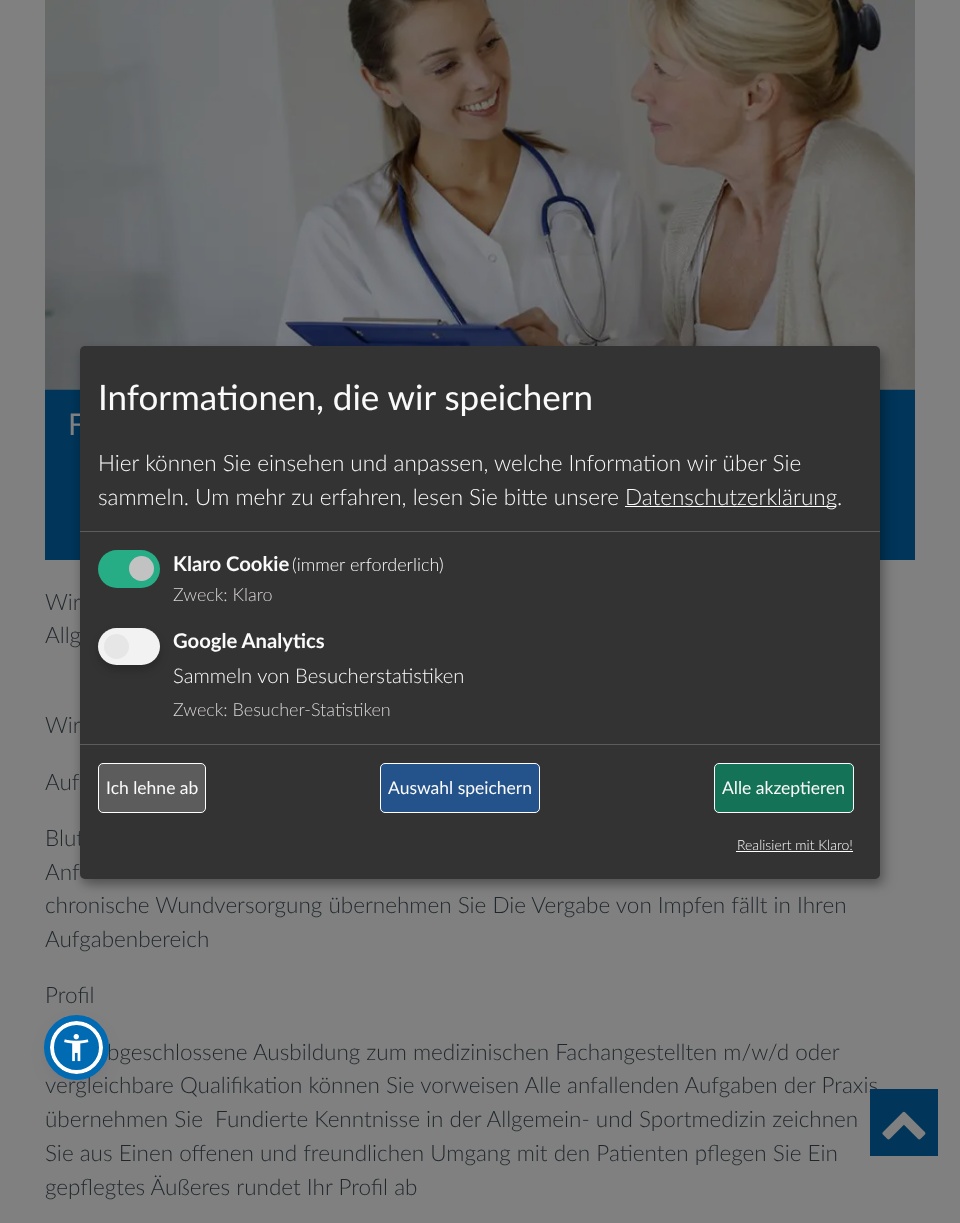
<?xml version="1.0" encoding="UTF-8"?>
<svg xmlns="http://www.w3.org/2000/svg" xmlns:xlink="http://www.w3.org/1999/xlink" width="960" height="1223">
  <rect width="100%" height="100%" fill="#808080" />
  <rect x="45" y="389" width="870" height="171" fill="#013559" />
  <image x="45" y="0" width="870" height="390" xlink:href="image1.png" />
  <rect x="86" y="353" width="800" height="532" rx="5" fill="#000000" fill-opacity="0.19" filter="blur(6px)" />
  <rect x="80" y="351" width="800" height="533" rx="5" fill="#000000" fill-opacity="0.2" filter="blur(4px)" />
  <rect x="50" y="1028" width="53" height="52" rx="26" fill="#252c61" fill-opacity="0.15" filter="blur(9.5px)" />
  <circle cx="76.5" cy="1047.5" r="24.5" fill="#006ab3" stroke="#ffffff" stroke-width="4" />
  <text x="68" y="435" style="font-family: Lato; font-size: 30px; fill: #808080">F</text>
  <text x="45" y="610" style="font-family: Lato; font-size: 22.5px; font-weight: 300; fill: #1f272b">Wir</text>
  <text x="45" y="643" style="font-family: Lato; font-size: 22.5px; font-weight: 300; fill: #1f272b">Allg</text>
  <text x="45" y="733" style="font-family: Lato; font-size: 22.5px; font-weight: 300; fill: #1f272b">Wir</text>
  <text x="45" y="790" style="font-family: Lato; font-size: 22.5px; font-weight: 300; fill: #1f272b">Auf</text>
  <text x="45" y="846" style="font-family: Lato; font-size: 22.5px; font-weight: 300; fill: #1f272b">Blut</text>
  <rect x="80" y="346" width="800" height="533" rx="5" fill="#333333" />
  <rect x="98" y="633" width="62" height="37" rx="18.5" fill="#000000" fill-opacity="0.2" filter="blur(4px)" />
  <rect x="98" y="628" width="62" height="37" rx="18.5" fill="#f2f2f2" />
  <circle cx="116.5" cy="646.5" r="12.5" fill="#e6e6e6" />
  <text x="173" y="716" style="font-family: Lato; font-size: 18px; font-weight: 300; fill: #d8d4d4">Zweck: Besucher-Statistiken</text>
  <text x="173" y="683" style="font-family: Lato; font-size: 20.25px; font-weight: 300; fill: #fafafa">Sammeln von Besucherstatistiken</text>
  <text x="173" y="648" style="font-family: Lato; font-size: 20.25px; font-weight: bold; fill: #fafafa">Google Analytics</text>
  <rect x="98" y="550" width="62" height="38" rx="19" fill="#27ad85" />
  <circle cx="141.5" cy="568.5" r="12.5" fill="#c2c2c2" />
  <text x="173" y="601" style="font-family: Lato; font-size: 18px; font-weight: 300; fill: #d8d4d4">Zweck: Klaro</text>
  <text x="292" y="571" style="font-family: Lato; font-size: 18px; font-weight: 300; fill: #fafafa">(immer erforderlich)</text>
  <text x="173" y="571" style="font-family: Lato; font-size: 20.25px; font-weight: bold; fill: #fafafa">Klaro Cookie</text>
  <text x="737" y="850" style="font-family: Lato; font-size: 14px; font-weight: 300; fill: #fafafa">Realisiert mit Klaro!</text>
  <rect x="736" y="851" width="117" height="1" fill="#ffffff" />
  <rect x="714.5" y="763.5" width="139" height="49" rx="4.5" fill="#147256" stroke="#ffffff" />
  <text x="722" y="794" style="font-family: Lato; font-size: 17.5px; fill: #fafafa">Alle akzeptieren</text>
  <rect x="380.5" y="763.5" width="159" height="49" rx="4.5" fill="#24538c" stroke="#ffffff" />
  <text x="388" y="794" style="font-family: Lato; font-size: 17.5px; fill: #fafafa">Auswahl speichern</text>
  <rect x="98.5" y="763.5" width="107" height="49" rx="4.5" fill="#5c5c5c" stroke="#ffffff" />
  <text x="106" y="794" style="font-family: Lato; font-size: 17.5px; fill: #fafafa">Ich lehne ab</text>
  <text x="837" y="505" style="font-family: Lato; font-size: 22.5px; font-weight: 300; fill: #fafafa">.</text>
  <rect x="625" y="506" width="211" height="1" fill="#ffffff" />
  <text x="625" y="505" style="font-family: Lato; font-size: 22.5px; font-weight: 300; fill: #fafafa">Datenschutzerklärung</text>
  <text x="98" y="505" style="font-family: Lato; font-size: 22.5px; font-weight: 300; fill: #fafafa">sammeln. Um mehr zu erfahren, lesen Sie bitte unsere</text>
  <text x="98" y="471" style="font-family: Lato; font-size: 22.5px; font-weight: 300; fill: #fafafa">Hier können Sie einsehen und anpassen, welche Information wir über Sie</text>
  <text x="98" y="410" style="font-family: Lato; font-size: 35px; fill: #fafafa">Informationen, die wir speichern</text>
  <rect x="80" y="744" width="800" height="1" fill="#5c5c5c" />
  <rect x="80" y="531" width="800" height="1" fill="#5c5c5c" />
  <text x="45" y="880" style="font-family: Lato; font-size: 22.5px; font-weight: 300; fill: #1f272b">Anf</text>
  <text x="45" y="913" style="font-family: Lato; font-size: 22.5px; font-weight: 300; fill: #1f272b">chronische Wundversorgung übernehmen Sie Die Vergabe von Impfen fällt in Ihren</text>
  <text x="45" y="947" style="font-family: Lato; font-size: 22.5px; font-weight: 300; fill: #1f272b">Aufgabenbereich</text>
  <text x="45" y="1003" style="font-family: Lato; font-size: 22.5px; font-weight: 300; fill: #1f272b">Profil</text>
  <text x="107" y="1060" style="font-family: Lato; font-size: 22.5px; font-weight: 300; fill: #1f272b">bgeschlossene Ausbildung zum medizinischen Fachangestellten m/w/d oder</text>
  <text x="45" y="1093" style="font-family: Lato; font-size: 22.5px; font-weight: 300; fill: #1f272b">vergleichbare Qualifikation können Sie vorweisen Alle anfallenden Aufgaben der Praxis</text>
  <text x="45" y="1127" style="font-family: Lato; font-size: 22.5px; font-weight: 300; fill: #1f272b" xml:space="preserve">übernehmen Sie  Fundierte Kenntnisse in der Allgemein- und Sportmedizin zeichnen</text>
  <text x="45" y="1161" style="font-family: Lato; font-size: 22.5px; font-weight: 300; fill: #1f272b">Sie aus Einen offenen und freundlichen Umgang mit den Patienten pflegen Sie Ein</text>
  <text x="45" y="1195" style="font-family: Lato; font-size: 22.5px; font-weight: 300; fill: #1f272b">gepflegtes Äußeres rundet Ihr Profil ab</text>
  <circle cx="76.5" cy="1047.5" r="29.5" fill="none" stroke="#006ab3" stroke-width="6" />
  <image x="64" y="1034" width="25" height="28" xlink:href="image2.png" />
  <rect x="870" y="1089" width="68" height="67" fill="#013559" />
  <image x="882" y="1111" width="44" height="29" xlink:href="image3.png" />
</svg>
